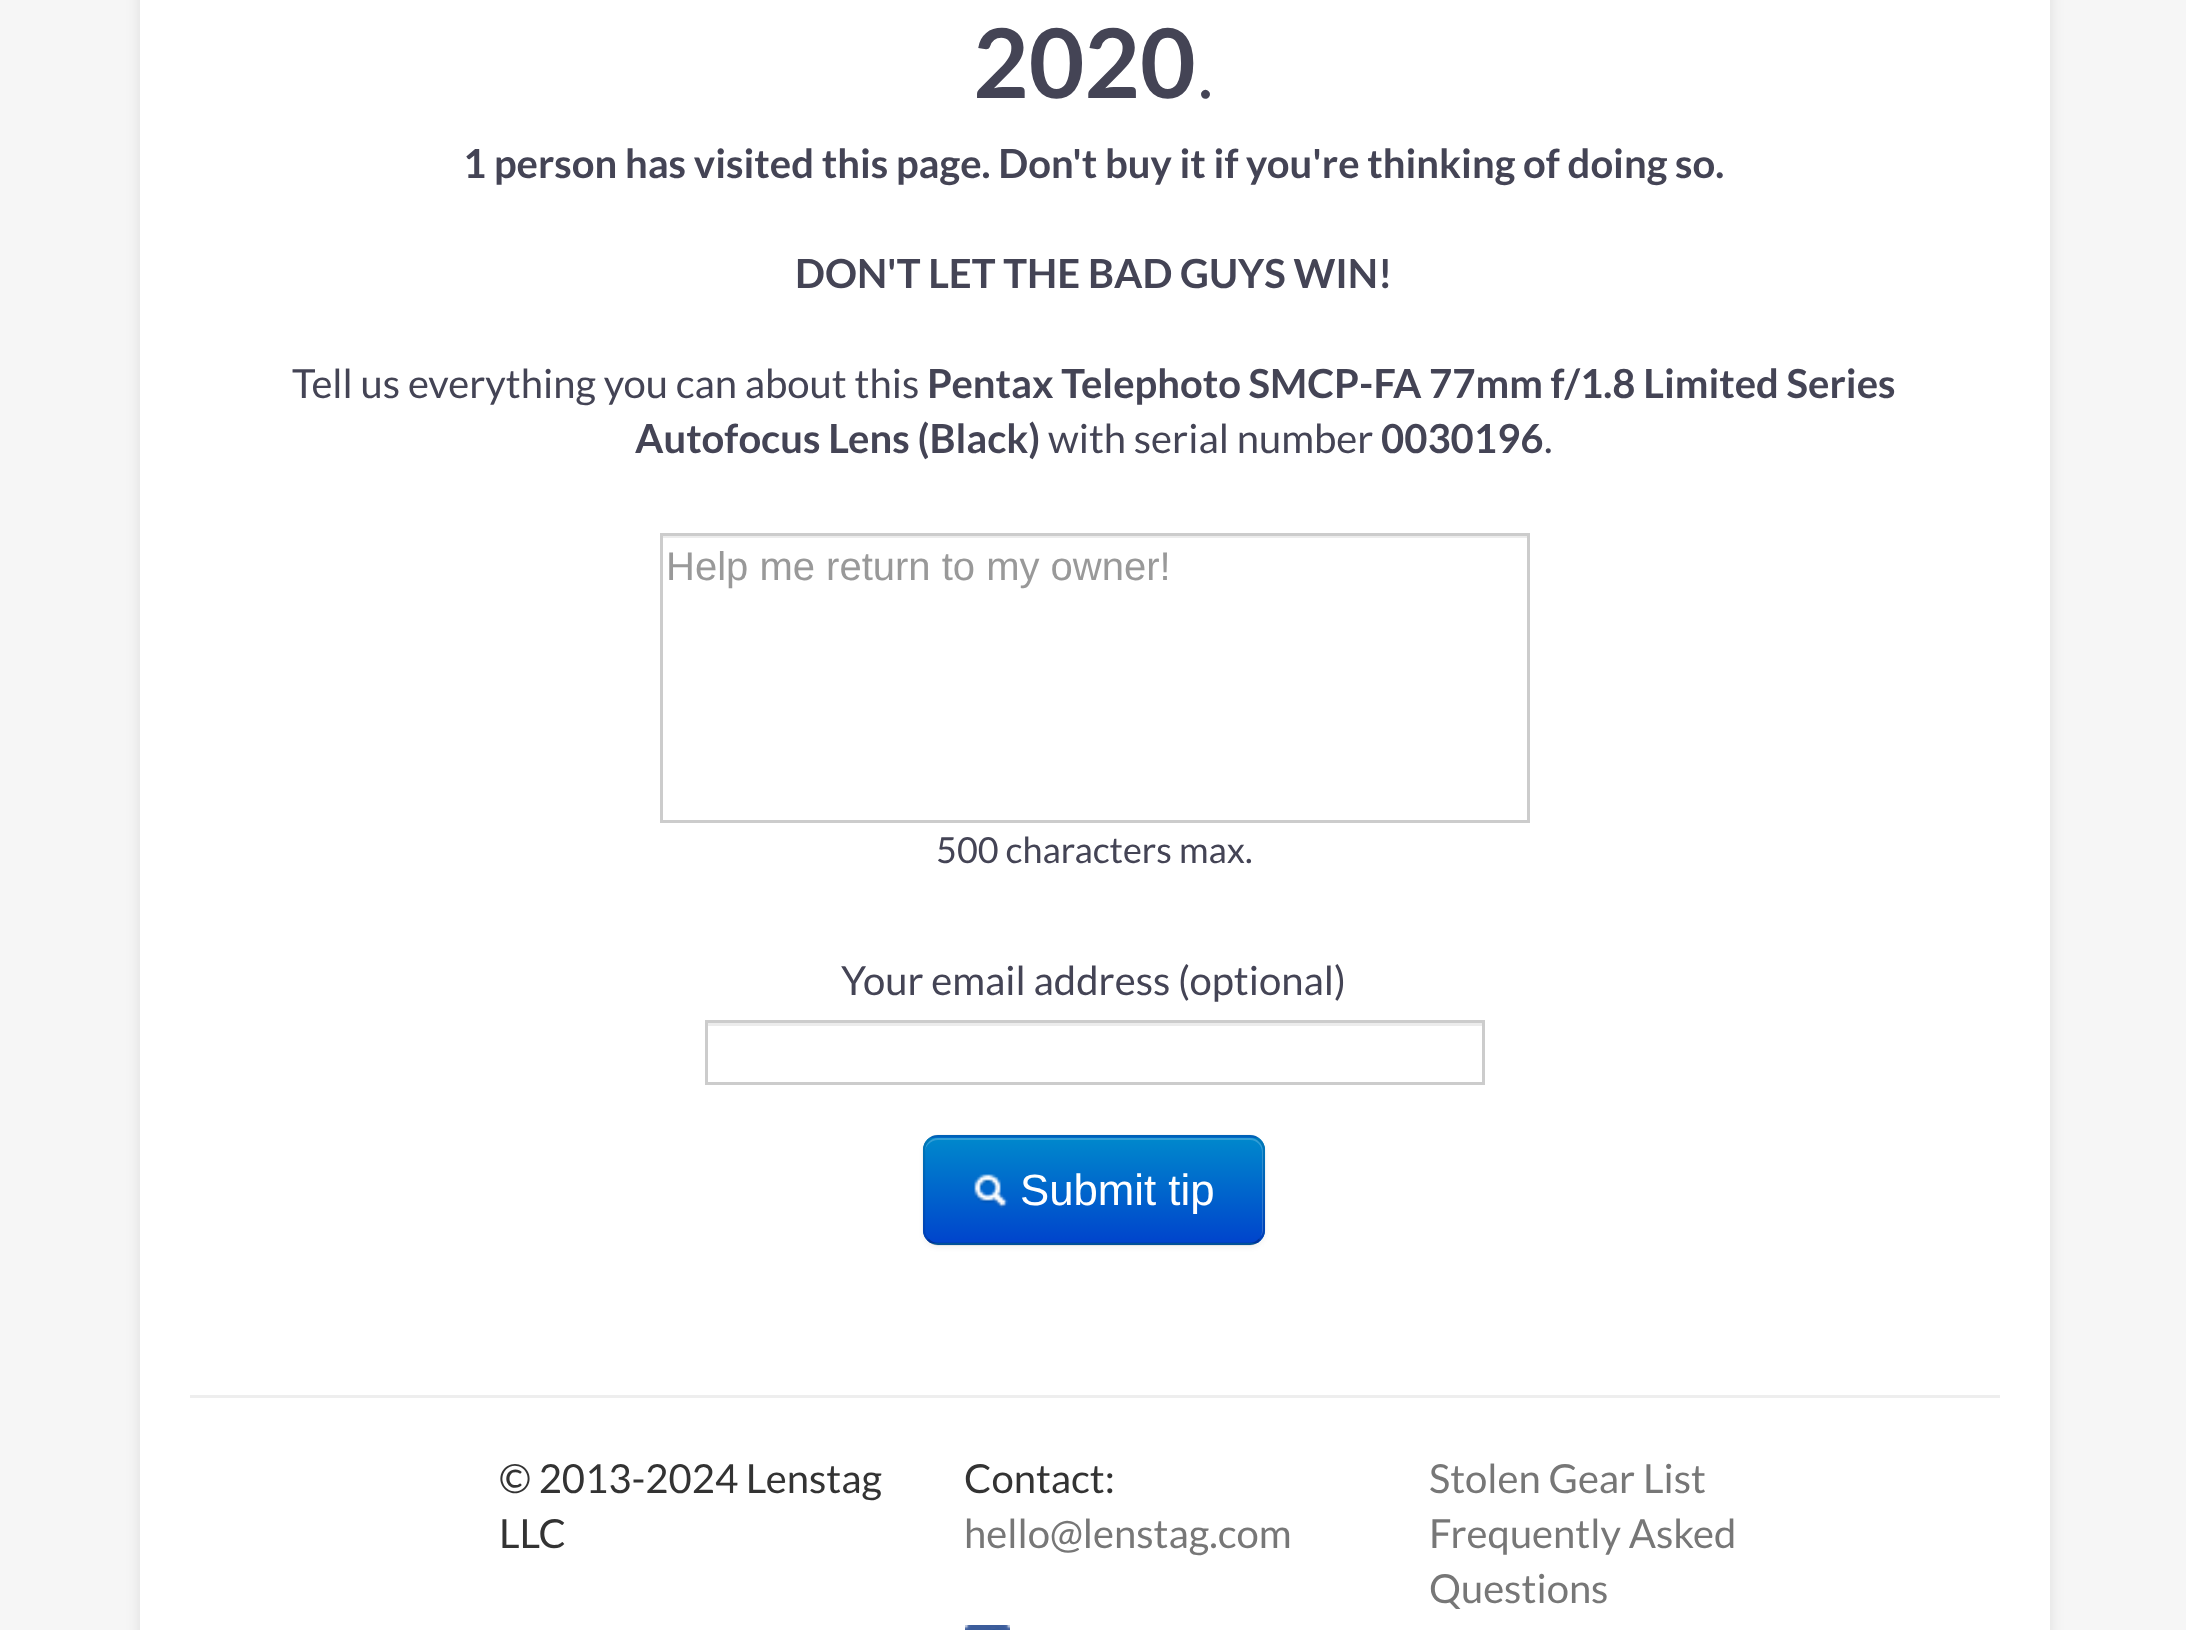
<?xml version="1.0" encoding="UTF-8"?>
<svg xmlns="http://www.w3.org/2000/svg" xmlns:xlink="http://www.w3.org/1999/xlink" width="2186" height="1630">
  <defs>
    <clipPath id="clip1"><rect x="923" y="1135" width="342" height="110" rx="15" /></clipPath>
    <linearGradient id="g1" gradientUnits="userSpaceOnUse" x1="1094" y1="1138" x2="1094" y2="1243"><stop offset="0" stop-color="#0088cc" /><stop offset="1" stop-color="#0044cc" /></linearGradient>
  </defs>
  <rect width="100%" height="100%" fill="#f6f6f6" />
  <rect x="140" y="-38" width="1910" height="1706" rx="15" fill="#000000" fill-opacity="0.1" filter="blur(7.5px)" />
  <rect x="140" width="1910" height="1630" fill="#ffffff" />
  <rect x="663" y="536" width="865" height="2" fill="#ececec" />
  <rect x="661.5" y="534.5" width="867" height="287" fill="none" stroke="#cccccc" stroke-width="3" />
  <rect x="708" y="1023" width="775" height="3" fill="#ececec" />
  <rect x="706.5" y="1021.5" width="777" height="62" fill="none" stroke="#cccccc" stroke-width="3" />
  <rect x="923" y="1138" width="342" height="110" rx="15" fill="#000000" fill-opacity="0.05" filter="blur(2.5px)" />
  <rect x="923" y="1135" width="342" height="110" rx="15" fill="#006dcc" />
  <g clip-path="url(#clip1)">
    <rect x="923" y="1138" width="342" height="105" fill="url(#g1)" />
  </g>
  <path d="M 938 1140 h 312 c 7 0 12 6 12 12 v 80 l -1 4 c 1 -1 2 -4 2 -6 v -79 c 0 -7 -6 -13 -13 -13 h -312 c -7 0 -13 6 -13 13 v 1 c 0 -6 6 -12 13 -12 z" fill="#ffffff" fill-opacity="0.2" />
  <path d="M 1259.5 1239.5 c -2.5 3 -6 4.5 -9.5 4.5 h -312.5 c -3.5 0 -7 -1.5 -9.5 -4.5" fill="none" stroke="#000000" stroke-opacity="0.25" stroke-width="2.5" />
  <path d="M 928 1239.5 c -3 -2.5 -4 -6 -4 -9.5 v -80 c 0 -3.5 1 -7 4 -9.5 c 2.5 -3 6 -4.5 9.5 -4.5 h 312.5 c 3.5 0 7 1.5 9.5 4.5 c 3 2.5 4.5 6 4.5 9.5 v 80 c 0 3.5 -1.5 7 -4.5 9.5" fill="none" stroke="#000000" stroke-opacity="0.1" stroke-width="2.5" />
  <image x="974" y="1174" width="34" height="34" xlink:href="image1.png" />
  <rect x="190" y="1395" width="1810" height="3" fill="#eeeeee" />
  <image x="965" y="1625" width="45" height="5" xlink:href="image2.png" />
  <text x="973" y="98" style="font-family: Lato; font-size: 96px; font-weight: bold; fill: #444455">2020</text>
  <text x="1196" y="98" style="font-family: Lato; font-size: 96px; font-weight: 300; fill: #444455">.</text>
  <text x="463" y="178" style="font-family: Lato; font-size: 40px; font-weight: bold; fill: #444455">1 person has visited this page. Don't buy it if you're thinking of doing so.</text>
  <text x="795" y="288" style="font-family: Lato; font-size: 40px; font-weight: bold; fill: #444455">DON'T LET THE BAD GUYS WIN!</text>
  <text x="292" y="398" style="font-family: Lato; font-size: 40px; fill: #444455">Tell us everything you can about this</text>
  <text x="927" y="398" style="font-family: Lato; font-size: 40px; font-weight: bold; fill: #444455">Pentax Telephoto SMCP-FA 77mm f/1.8 Limited Series</text>
  <text x="635" y="453" style="font-family: Lato; font-size: 40px; font-weight: bold; fill: #444455">Autofocus Lens (Black)</text>
  <text x="1048" y="453" style="font-family: Lato; font-size: 40px; fill: #444455">with serial number</text>
  <text x="1381" y="453" style="font-family: Lato; font-size: 40px; font-weight: bold; fill: #444455">0030196</text>
  <text x="1544" y="453" style="font-family: Lato; font-size: 40px; fill: #444455">.</text>
  <text x="666" y="580" style="font-family: Liberation Sans; font-size: 40px; fill: #999999">Help me return to my owner!</text>
  <text x="936" y="863" style="font-family: Lato; font-size: 36px; fill: #444455">500 characters max.</text>
  <text x="841" y="995" style="font-family: Lato; font-size: 40px; fill: #444455">Your email address (optional)</text>
  <text x="1020" y="1205" style="font-family: Liberation Sans; font-size: 43.75px; fill: #ffffff">Submit tip</text>
  <text x="499" y="1493" style="font-family: Lato; font-size: 40px; fill: #333333">© 2013-2024 Lenstag</text>
  <text x="499" y="1548" style="font-family: Lato; font-size: 40px; fill: #333333">LLC</text>
  <text x="964" y="1493" style="font-family: Lato; font-size: 40px; fill: #333333">Contact:</text>
  <text x="964" y="1548" style="font-family: Lato; font-size: 40px; fill: #777777">hello@lenstag.com</text>
  <text x="1429" y="1493" style="font-family: Lato; font-size: 40px; fill: #777777">Stolen Gear List</text>
  <text x="1429" y="1548" style="font-family: Lato; font-size: 40px; fill: #777777">Frequently Asked</text>
  <text x="1429" y="1603" style="font-family: Lato; font-size: 40px; fill: #777777">Questions</text>
</svg>
